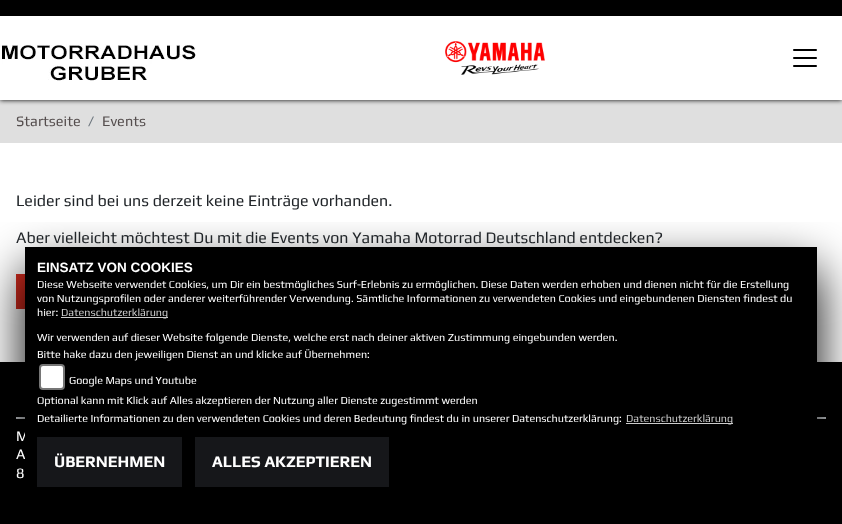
<?xml version="1.0" encoding="UTF-8"?>
<svg xmlns="http://www.w3.org/2000/svg" xmlns:xlink="http://www.w3.org/1999/xlink" width="842" height="524">
  <defs>
    <clipPath id="clip1"><rect x="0" y="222" width="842" height="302" /></clipPath>
  </defs>
  <rect width="100%" height="100%" fill="#ffffff" />
  <rect y="100" width="842" height="43" fill="#dfdfdf" />
  <rect width="842" height="100" fill="#000000" filter="blur(2.5px)" />
  <rect width="842" height="16" fill="#000000" />
  <rect y="16" width="842" height="84" fill="#ffffff" />
  <image x="0" y="44" width="196" height="37" xlink:href="image1.png" />
  <image x="445" y="41" width="100" height="34" xlink:href="image2.png" />
  <image x="793" y="49" width="24" height="18" xlink:href="image3.png" />
  <rect x="16" y="274" width="9" height="35" fill="#d52b1e" />
  <rect y="362" width="842" height="162" fill="#000000" />
  <rect x="817" y="417" width="9" height="2" fill="#dee2e6" />
  <rect x="16" y="417" width="9" height="2" fill="#dee2e6" />
  <g clip-path="url(#clip1)">
    <rect x="25" y="269" width="792" height="252" fill="#000000" filter="blur(25px)" />
  </g>
  <text x="16" y="126" style="font-family: Play; font-size: 14.5px; fill: #554e4e">Startseite</text>
  <text x="88" y="126" style="font-family: Play; font-size: 14.5px; fill: #6c757d">/</text>
  <text x="102" y="126" style="font-family: Play; font-size: 14.5px; fill: #554e4e">Events</text>
  <text x="16" y="206" style="font-family: Play; font-size: 16px; fill: #212529">Leider sind bei uns derzeit keine Einträge vorhanden.</text>
  <text x="16" y="243" style="font-family: Play; font-size: 16px; fill: #212529">Aber vielleicht möchtest Du mit die Events von Yamaha Motorrad Deutschland entdecken?</text>
  <text x="16" y="441" style="font-family: Play; font-size: 14.5px; fill: #ffffff">M</text>
  <text x="16" y="459" style="font-family: Play; font-size: 14.5px; fill: #ffffff">A</text>
  <text x="16" y="478" style="font-family: Play; font-size: 14.5px; fill: #ffffff">8</text>
  <rect x="25" y="247" width="792" height="212" fill="#000000" />
  <text x="37" y="272" style="font-family: Liberation Sans; font-size: 13.5px; font-weight: bold; fill: #ffffff">EINSATZ VON COOKIES</text>
  <text x="37" y="288" style="font-family: Play; font-size: 10.8px; fill: #ffffff">Diese Webseite verwendet Cookies, um Dir ein bestmögliches Surf-Erlebnis zu ermöglichen. Diese Daten werden erhoben und dienen nicht für die Erstellung</text>
  <text x="37" y="302" style="font-family: Play; font-size: 10.8px; fill: #ffffff">von Nutzungsprofilen oder anderer weiterführender Verwendung. Sämtliche Informationen zu verwendeten Cookies und eingebundenen Diensten findest du</text>
  <text x="37" y="316" style="font-family: Play; font-size: 10.8px; fill: #ffffff">hier:</text>
  <rect x="61" y="317" width="107" height="1" fill="#cccccc" />
  <text x="61" y="316" style="font-family: Play; font-size: 10.8px; fill: #cccccc">Datenschutzerklärung</text>
  <text x="37" y="341" style="font-family: Play; font-size: 10.8px; fill: #ffffff">Wir verwenden auf dieser Website folgende Dienste, welche erst nach deiner aktiven Zustimmung eingebunden werden.</text>
  <text x="37" y="358" style="font-family: Play; font-size: 10.8px; fill: #ffffff">Bitte hake dazu den jeweiligen Dienst an und klicke auf Übernehmen:</text>
  <rect x="40" y="365" width="24" height="24" rx="3" fill="#ffffff" stroke="#767676" stroke-width="2" />
  <text x="69" y="384" style="font-family: Play; font-size: 10.8px; fill: #ffffff">Google Maps und Youtube</text>
  <text x="37" y="404" style="font-family: Play; font-size: 10.8px; fill: #ffffff">Optional kann mit Klick auf Alles akzeptieren der Nutzung aller Dienste zugestimmt werden</text>
  <text x="37" y="422" style="font-family: Play; font-size: 10.8px; fill: #ffffff">Detailierte Informationen zu den verwendeten Cookies und deren Bedeutung findest du in unserer Datenschutzerklärung:</text>
  <rect x="626" y="423" width="107" height="1" fill="#cccccc" />
  <text x="626" y="422" style="font-family: Play; font-size: 10.8px; fill: #cccccc">Datenschutzerklärung</text>
  <rect x="37" y="437" width="145" height="50" fill="#16171a" />
  <text x="54" y="467" style="font-family: Play; font-size: 16px; font-weight: bold; fill: #ffffff">ÜBERNEHMEN</text>
  <rect x="195" y="437" width="194" height="50" fill="#16171a" />
  <text x="212" y="467" style="font-family: Play; font-size: 16px; font-weight: bold; fill: #ffffff">ALLES AKZEPTIEREN</text>
</svg>
